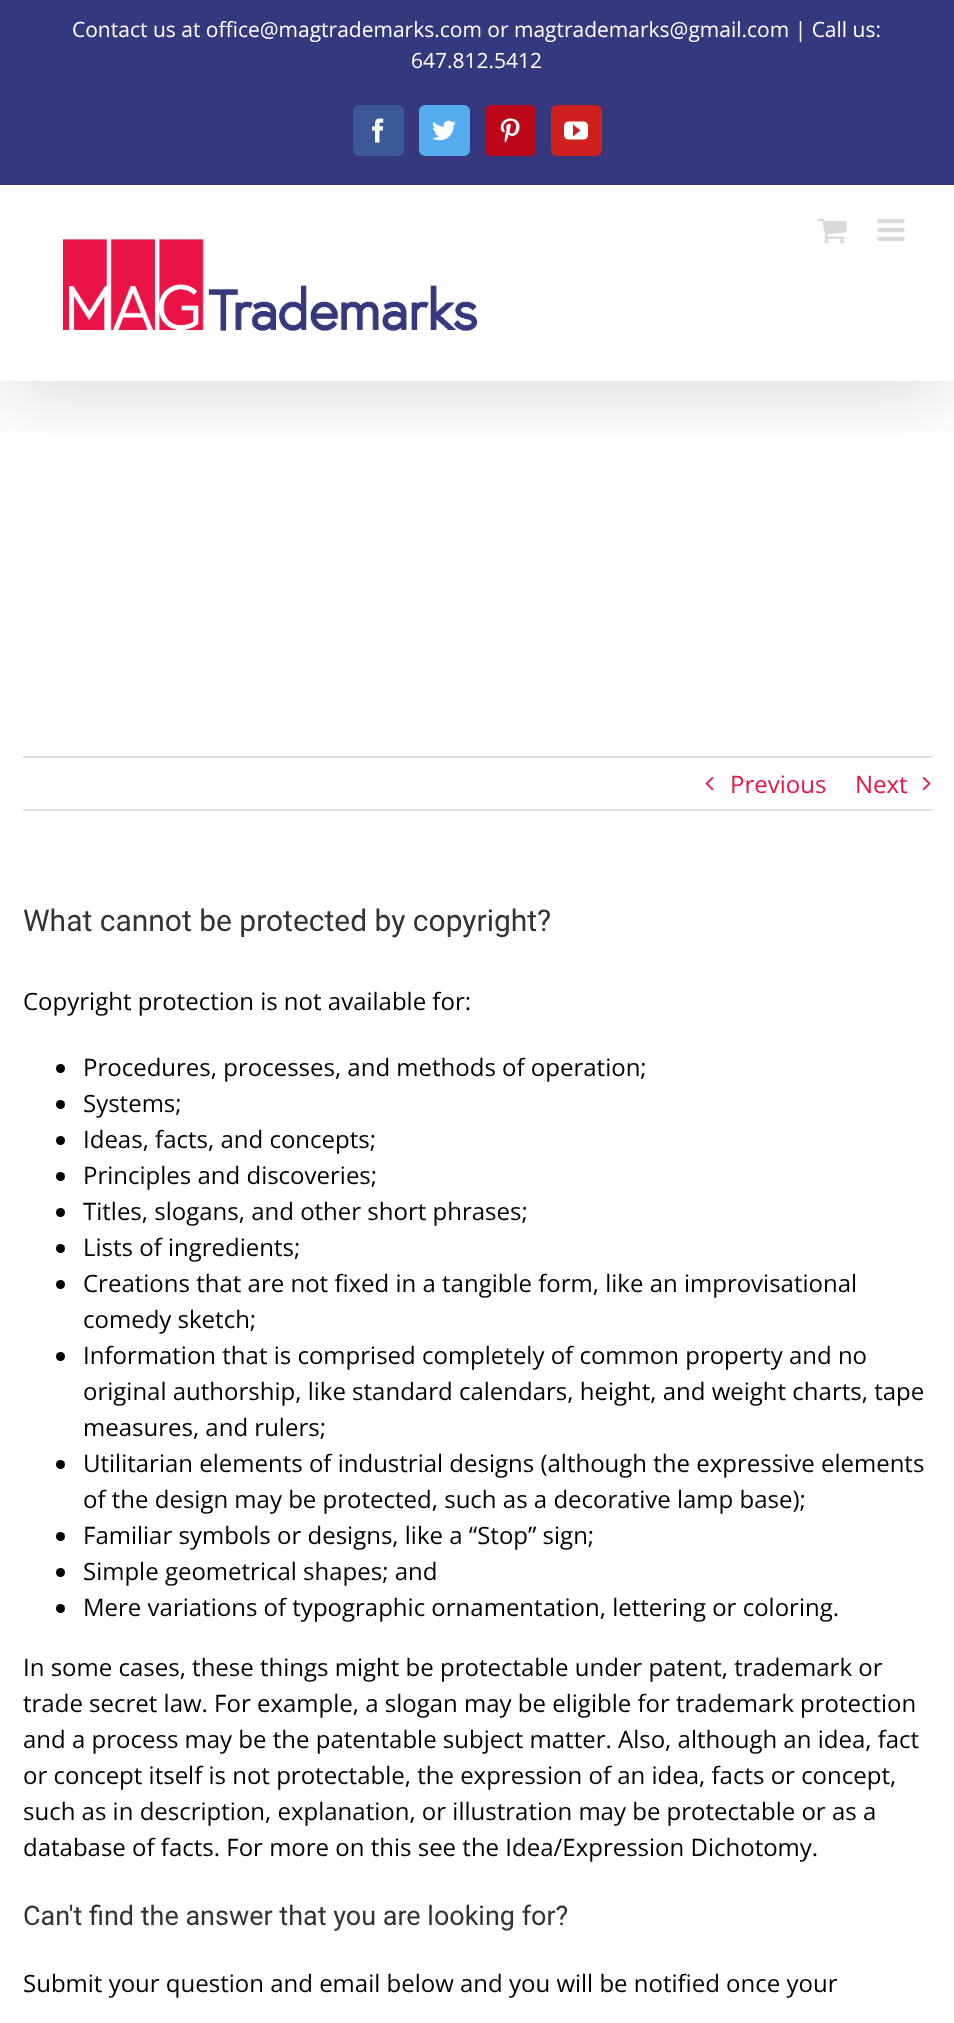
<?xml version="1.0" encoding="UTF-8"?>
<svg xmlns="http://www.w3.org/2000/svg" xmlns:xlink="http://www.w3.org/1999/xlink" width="954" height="2023">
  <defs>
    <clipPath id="clip1"><rect x="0" y="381" width="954" height="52" /></clipPath>
  </defs>
  <rect width="100%" height="100%" fill="#ffffff" />
  <g clip-path="url(#clip1)">
    <rect x="3" y="18" width="948" height="375" fill="#000000" fill-opacity="0.14" filter="blur(37.5px)" />
  </g>
  <rect width="954" height="185" fill="#35387d" />
  <rect x="354" y="106" width="49" height="49" rx="5" fill="#3b5998" stroke="#3b5998" stroke-width="2" />
  <image x="372" y="118" width="12" height="25" xlink:href="image1.png" />
  <rect x="420" y="106" width="49" height="49" rx="5" fill="#55acee" stroke="#55acee" stroke-width="2" />
  <image x="432" y="120" width="24" height="21" xlink:href="image2.png" />
  <rect x="486" y="106" width="49" height="49" rx="5" fill="#bd081c" stroke="#bd081c" stroke-width="2" />
  <image x="500" y="118" width="20" height="25" xlink:href="image3.png" />
  <rect x="552" y="106" width="49" height="49" rx="5" fill="#cd201f" stroke="#cd201f" stroke-width="2" />
  <image x="564" y="121" width="24" height="19" xlink:href="image4.png" />
  <image x="817" y="218" width="30" height="26" xlink:href="image5.png" />
  <image x="877" y="218" width="28" height="24" xlink:href="image6.png" />
  <image x="62" y="239" width="416" height="92" xlink:href="image7.png" />
  <rect x="23" y="756" width="909" height="2" fill="#e0dede" />
  <rect x="23" y="809" width="909" height="2" fill="#e0dede" />
  <image x="705" y="776" width="9" height="15" xlink:href="image8.png" />
  <image x="922" y="776" width="9" height="15" xlink:href="image9.png" />
  <circle cx="60.5" cy="1068.5" r="4.5" fill="#000000" />
  <circle cx="60.5" cy="1104.5" r="4.5" fill="#000000" />
  <circle cx="60.5" cy="1140.5" r="4.5" fill="#000000" />
  <circle cx="60.5" cy="1176.5" r="4.5" fill="#000000" />
  <circle cx="60.5" cy="1212.5" r="4.5" fill="#000000" />
  <circle cx="60.5" cy="1248.5" r="4.5" fill="#000000" />
  <circle cx="60.5" cy="1284.5" r="4.5" fill="#000000" />
  <circle cx="60.5" cy="1356.5" r="4.5" fill="#000000" />
  <circle cx="60.5" cy="1464.5" r="4.5" fill="#000000" />
  <circle cx="60.5" cy="1536.5" r="4.5" fill="#000000" />
  <circle cx="60.5" cy="1572.5" r="4.5" fill="#000000" />
  <circle cx="60.5" cy="1608.5" r="4.5" fill="#000000" />
  <text x="72" y="37" style="font-family: Open Sans; font-size: 21px; fill: #ffffff">Contact us at office@magtrademarks.com or magtrademarks@gmail.com | Call us:</text>
  <text x="411" y="68" style="font-family: Open Sans; font-size: 21px; fill: #ffffff">647.812.5412</text>
  <text x="730" y="793" style="font-family: Open Sans; font-size: 24px; fill: #e91346">Previous</text>
  <text x="855" y="793" style="font-family: Open Sans; font-size: 24px; fill: #e91346">Next</text>
  <text x="23" y="931" style="font-family: Roboto; font-size: 30px; fill: #333333">What cannot be protected by copyright?</text>
  <text x="23" y="1010" style="font-family: Open Sans; font-size: 24px; fill: #000000">Copyright protection is not available for:</text>
  <text x="83" y="1076" style="font-family: Open Sans; font-size: 24px; fill: #000000">Procedures, processes, and methods of operation;</text>
  <text x="83" y="1112" style="font-family: Open Sans; font-size: 24px; fill: #000000">Systems;</text>
  <text x="83" y="1148" style="font-family: Open Sans; font-size: 24px; fill: #000000">Ideas, facts, and concepts;</text>
  <text x="83" y="1184" style="font-family: Open Sans; font-size: 24px; fill: #000000">Principles and discoveries;</text>
  <text x="83" y="1220" style="font-family: Open Sans; font-size: 24px; fill: #000000">Titles, slogans, and other short phrases;</text>
  <text x="83" y="1256" style="font-family: Open Sans; font-size: 24px; fill: #000000">Lists of ingredients;</text>
  <text x="83" y="1292" style="font-family: Open Sans; font-size: 24px; fill: #000000">Creations that are not fixed in a tangible form, like an improvisational</text>
  <text x="83" y="1328" style="font-family: Open Sans; font-size: 24px; fill: #000000">comedy sketch;</text>
  <text x="83" y="1364" style="font-family: Open Sans; font-size: 24px; fill: #000000">Information that is comprised completely of common property and no</text>
  <text x="83" y="1400" style="font-family: Open Sans; font-size: 24px; fill: #000000">original authorship, like standard calendars, height, and weight charts, tape</text>
  <text x="83" y="1436" style="font-family: Open Sans; font-size: 24px; fill: #000000">measures, and rulers;</text>
  <text x="83" y="1472" style="font-family: Open Sans; font-size: 24px; fill: #000000">Utilitarian elements of industrial designs (although the expressive elements</text>
  <text x="83" y="1508" style="font-family: Open Sans; font-size: 24px; fill: #000000">of the design may be protected, such as a decorative lamp base);</text>
  <text x="83" y="1544" style="font-family: Open Sans; font-size: 24px; fill: #000000">Familiar symbols or designs, like a “Stop” sign;</text>
  <text x="83" y="1580" style="font-family: Open Sans; font-size: 24px; fill: #000000">Simple geometrical shapes; and</text>
  <text x="83" y="1616" style="font-family: Open Sans; font-size: 24px; fill: #000000">Mere variations of typographic ornamentation, lettering or coloring.</text>
  <text x="23" y="1676" style="font-family: Open Sans; font-size: 24px; fill: #000000">In some cases, these things might be protectable under patent, trademark or</text>
  <text x="23" y="1712" style="font-family: Open Sans; font-size: 24px; fill: #000000">trade secret law. For example, a slogan may be eligible for trademark protection</text>
  <text x="23" y="1748" style="font-family: Open Sans; font-size: 24px; fill: #000000">and a process may be the patentable subject matter. Also, although an idea, fact</text>
  <text x="23" y="1784" style="font-family: Open Sans; font-size: 24px; fill: #000000">or concept itself is not protectable, the expression of an idea, facts or concept,</text>
  <text x="23" y="1820" style="font-family: Open Sans; font-size: 24px; fill: #000000">such as in description, explanation, or illustration may be protectable or as a</text>
  <text x="23" y="1856" style="font-family: Open Sans; font-size: 24px; fill: #000000">database of facts. For more on this see the Idea/Expression Dichotomy.</text>
  <text x="23" y="1925" style="font-family: Roboto; font-size: 27px; fill: #333333">Can't find the answer that you are looking for?</text>
  <text x="23" y="1992" style="font-family: Open Sans; font-size: 24px; fill: #000000">Submit your question and email below and you will be notified once your</text>
</svg>
